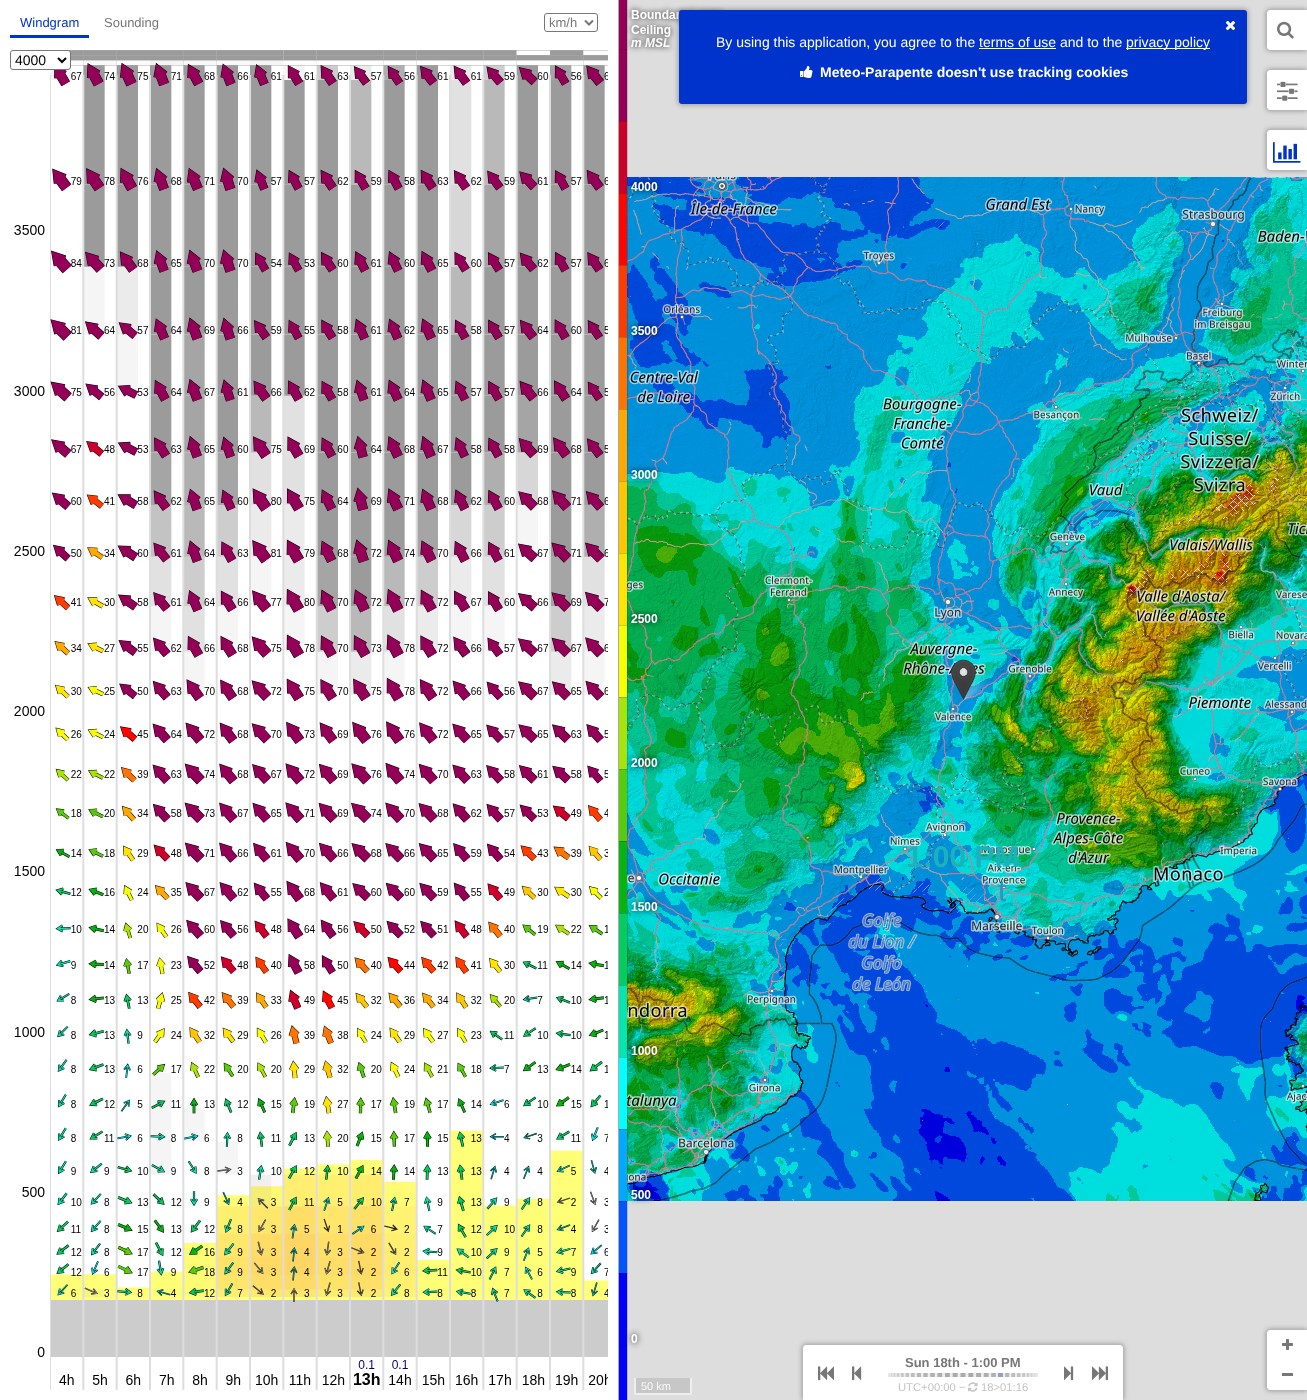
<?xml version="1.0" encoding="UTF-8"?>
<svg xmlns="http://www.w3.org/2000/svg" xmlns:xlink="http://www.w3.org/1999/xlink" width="1307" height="1400">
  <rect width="100%" height="100%" fill="#ffffff" />
  <rect x="10" y="35" width="79" height="3" fill="#0033cc" />
  <rect x="544.5" y="13.5" width="53" height="18" rx="2.5" fill="none" stroke="#777777" />
  <path d="M 585 20.5 l 4 4 l 4 -4" fill="none" stroke="#777777" stroke-width="2" />
  <image x="50" y="50" width="558" height="1340" xlink:href="image1.png" />
  <rect x="10.5" y="50.5" width="60" height="19" rx="2.5" fill="#ffffff" stroke="#777777" />
  <path d="M 58 58 l 4 4 l 4 -4" fill="none" stroke="#000000" stroke-width="2" />
  <image x="14" y="225" width="31" height="1132" xlink:href="image2.png" />
  <rect x="618" width="1" height="1400" fill="#aaaaaa" />
  <rect x="627" width="680" height="1400" fill="#dddddd" />
  <rect x="1266" y="9" width="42" height="42" rx="4" fill="#000000" fill-opacity="0.3" filter="blur(2.5px)" />
  <path d="M 1270 10 h 37 v 40 h -37 c -1.5 0 -3 -1.5 -3 -3 v -34 c 0 -1.5 1.5 -3 3 -3 z" fill="#ffffff" />
  <image x="1277" y="21" width="17" height="18" xlink:href="image6.png" />
  <rect x="1266" y="69" width="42" height="42" rx="4" fill="#000000" fill-opacity="0.3" filter="blur(2.5px)" />
  <path d="M 1270 70 h 37 v 40 h -37 c -1.5 0 -3 -1.5 -3 -3 v -34 c 0 -1.5 1.5 -3 3 -3 z" fill="#ffffff" />
  <image x="1277" y="81" width="21" height="20" xlink:href="image7.png" />
  <image x="627" y="177" width="137" height="256" xlink:href="image8.png" />
  <image x="764" y="177" width="256" height="256" xlink:href="image9.png" />
  <image x="1020" y="177" width="256" height="256" xlink:href="image10.png" />
  <image x="1276" y="177" width="31" height="256" xlink:href="image11.png" />
  <image x="627" y="433" width="137" height="256" xlink:href="image12.png" />
  <image x="764" y="433" width="256" height="256" xlink:href="image13.png" />
  <image x="1020" y="433" width="256" height="256" xlink:href="image14.png" />
  <image x="1276" y="433" width="31" height="256" xlink:href="image15.png" />
  <image x="627" y="689" width="137" height="256" xlink:href="image16.png" />
  <image x="764" y="689" width="256" height="256" xlink:href="image17.png" />
  <image x="1020" y="689" width="256" height="256" xlink:href="image18.png" />
  <image x="1276" y="689" width="31" height="256" xlink:href="image19.png" />
  <image x="627" y="945" width="137" height="256" xlink:href="image20.png" />
  <image x="764" y="945" width="256" height="256" xlink:href="image21.png" />
  <image x="1020" y="945" width="256" height="256" xlink:href="image22.png" />
  <image x="1276" y="945" width="31" height="256" xlink:href="image23.png" />
  <image x="627" y="177" width="137" height="256" xlink:href="image24.png" />
  <image x="764" y="177" width="256" height="256" xlink:href="image25.png" />
  <image x="1020" y="177" width="256" height="256" xlink:href="image26.png" />
  <image x="1276" y="177" width="31" height="256" xlink:href="image27.png" />
  <image x="627" y="433" width="137" height="256" xlink:href="image28.png" />
  <image x="764" y="433" width="256" height="256" xlink:href="image29.png" />
  <image x="1020" y="433" width="256" height="256" xlink:href="image30.png" />
  <image x="1276" y="433" width="31" height="256" xlink:href="image31.png" />
  <image x="627" y="689" width="137" height="256" xlink:href="image32.png" />
  <image x="764" y="689" width="256" height="256" xlink:href="image33.png" />
  <image x="1020" y="689" width="256" height="256" xlink:href="image34.png" />
  <image x="1276" y="689" width="31" height="256" xlink:href="image35.png" />
  <image x="627" y="945" width="137" height="256" xlink:href="image36.png" />
  <image x="764" y="945" width="256" height="256" xlink:href="image37.png" />
  <image x="1020" y="945" width="256" height="256" xlink:href="image38.png" />
  <image x="1276" y="945" width="31" height="256" xlink:href="image39.png" />
  <image x="961" y="672" width="29" height="28" xlink:href="image41.png" />
  <image x="951" y="659" width="25" height="41" xlink:href="image40.png" />
  <rect x="634" y="1378" width="58" height="17" fill="#c7c7c7" />
  <path d="M 692 1378 v 17 l -2 -2 v -15 z" fill="#eeeeee" />
  <path d="M 692 1395 h -58 l 2 -2 h 54 z" fill="#ffffff" fill-opacity="0.7" />
  <path d="M 634 1395 v -17 h 2 v 15 z" fill="#ffffff" fill-opacity="0.7" />
  <rect x="1266" y="1329" width="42" height="62" rx="4" fill="#000000" fill-opacity="0.3" filter="blur(2.5px)" />
  <path d="M 1270 1330 h 37 v 60 h -37 c -1.5 0 -3 -1.5 -3 -3 v -54 c 0 -1.5 1.5 -3 3 -3 z" fill="#ffffff" />
  <image x="1282" y="1339" width="11" height="11" xlink:href="image42.png" />
  <rect x="1282" y="1373" width="11" height="3" fill="#777777" />
  <rect x="1266" y="129" width="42" height="42" rx="4" fill="#000000" fill-opacity="0.3" filter="blur(2.5px)" />
  <path d="M 1270 130 h 37 v 40 h -37 c -1.5 0 -3 -1.5 -3 -3 v -34 c 0 -1.5 1.5 -3 3 -3 z" fill="#ffffff" />
  <image x="1273" y="142" width="28" height="21" xlink:href="image43.png" />
  <rect x="802" y="1344" width="322" height="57" rx="4" fill="#000000" fill-opacity="0.3" filter="blur(2.5px)" />
  <path d="M 806 1345 h 314 c 1.5 0 3 1.5 3 3 v 52 h -320 v -52 c 0 -1.5 1.5 -3 3 -3 z" fill="#ffffff" />
  <image x="818" y="1366" width="16" height="15" xlink:href="image44.png" />
  <image x="852" y="1366" width="10" height="15" xlink:href="image45.png" />
  <rect x="888" y="1373" width="150" height="4" fill="#eeeeee" />
  <image x="888" y="1373" width="150" height="4" xlink:href="image46.png" />
  <image x="968" y="1382" width="10" height="10" xlink:href="image47.png" />
  <image x="1064" y="1366" width="10" height="15" xlink:href="image48.png" />
  <image x="1092" y="1366" width="16" height="15" xlink:href="image49.png" />
  <text x="20" y="27" style="font-family: Liberation Sans; font-size: 13px; fill: #0033cc">Windgram</text>
  <text x="104" y="27" style="font-family: Liberation Sans; font-size: 13px; fill: #777777">Sounding</text>
  <text x="549" y="27" style="font-family: Liberation Sans; font-size: 13px; fill: #777777">km/h</text>
  <text x="15" y="65" style="font-family: Liberation Sans; font-size: 14px; fill: #000000">4000</text>
  <text x="641" y="1390" style="font-family: Liberation Sans; font-size: 11px; fill: #f9f9f9">50 km</text>
  <image x="619" y="0" width="106" height="1400" xlink:href="image3.png" />
  <rect x="678" y="9" width="570" height="96" rx="4" fill="#000000" fill-opacity="0.3" filter="blur(2.5px)" />
  <rect x="679" y="10" width="568" height="94" rx="3" fill="#0033cc" />
  <image x="1225" y="20" width="11" height="11" xlink:href="image4.png" />
  <text x="820" y="77" style="font-family: Liberation Sans; font-size: 14px; font-weight: bold; fill: #ffffff">Meteo-Parapente doesn't use tracking cookies</text>
  <image x="800" y="66" width="13" height="12" xlink:href="image5.png" />
  <rect x="1126" y="48" width="84" height="1" fill="#ffffff" />
  <text x="1126" y="47" style="font-family: Liberation Sans; font-size: 14px; fill: #ffffff">privacy policy</text>
  <rect x="979" y="48" width="77" height="1" fill="#ffffff" />
  <text x="716" y="47" style="font-family: Liberation Sans; font-size: 14px; fill: #ffffff">By using this application, you agree to the terms of use and to the</text>
  <text x="906" y="867" style="font-family: Liberation Sans; font-size: 30px; font-weight: bold; fill: #1db1be">1:00 PM</text>
  <text x="998" y="901" style="font-family: Liberation Sans; font-size: 30px; fill: #1e97cc">t</text>
  <text x="905" y="1367" style="font-family: Liberation Sans; font-size: 13px; font-weight: bold; fill: #777777">Sun 18th - 1:00 PM</text>
  <text x="898" y="1391" style="font-family: Liberation Sans; font-size: 11.25px; fill: #c4c4c4">UTC+00:00 −</text>
  <text x="981" y="1391" style="font-family: Liberation Sans; font-size: 11.25px; fill: #c4c4c4">18&gt;01:16</text>
</svg>
